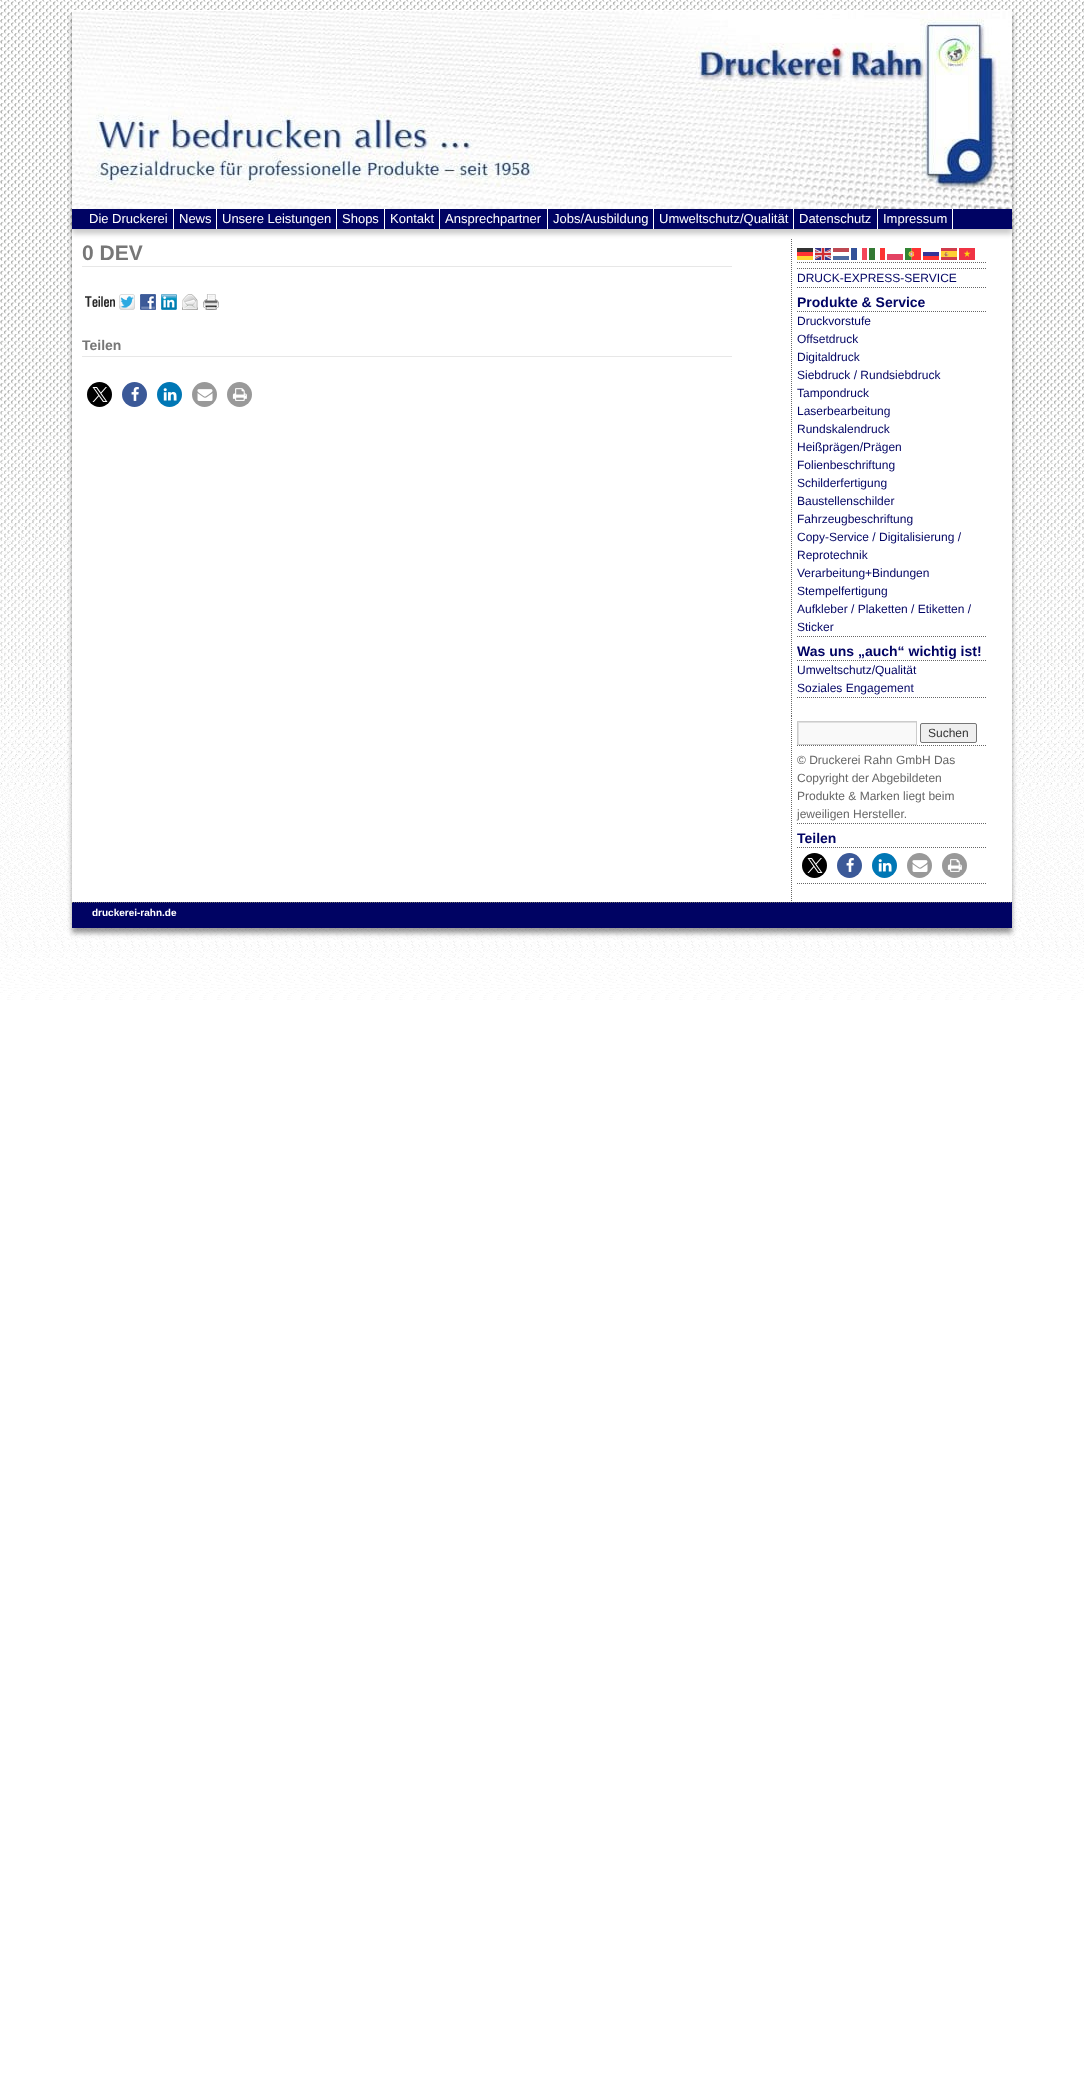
<?xml version="1.0" encoding="UTF-8"?>
<svg xmlns="http://www.w3.org/2000/svg" xmlns:xlink="http://www.w3.org/1999/xlink" width="1084" height="2081">
  <defs>
    <clipPath id="clip1"><rect x="798" y="722" width="118" height="22" /></clipPath>
  </defs>
  <rect width="100%" height="100%" fill="#ffffff" />
  <image x="0" y="0" width="1084" height="1000" xlink:href="image1.png" />
  <rect x="72" y="15" width="940" height="918" fill="#000000" fill-opacity="0.4" filter="blur(2.5px)" />
  <rect x="72" y="10" width="940" height="892" fill="#ffffff" />
  <image x="72" y="11" width="940" height="198" xlink:href="image2.png" />
  <rect x="72" y="214" width="940" height="20" fill="#000000" fill-opacity="0.2" filter="blur(2.5px)" />
  <rect x="72" y="209" width="940" height="20" fill="#000363" />
  <rect x="173" y="209" width="1" height="20" fill="#ffffff" />
  <rect x="216" y="209" width="1" height="20" fill="#ffffff" />
  <rect x="336" y="209" width="1" height="20" fill="#ffffff" />
  <rect x="384" y="209" width="1" height="20" fill="#ffffff" />
  <rect x="439" y="209" width="1" height="20" fill="#ffffff" />
  <rect x="547" y="209" width="1" height="20" fill="#ffffff" />
  <rect x="653" y="209" width="1" height="20" fill="#ffffff" />
  <rect x="793" y="209" width="1" height="20" fill="#ffffff" />
  <rect x="877" y="209" width="1" height="20" fill="#ffffff" />
  <rect x="952" y="209" width="1" height="20" fill="#ffffff" />
  <rect x="82" y="266" width="650" height="1" fill="#e7e7e7" />
  <image x="85" y="295" width="30" height="12" xlink:href="image3.png" />
  <image x="119" y="294" width="16" height="16" xlink:href="image4.png" />
  <image x="140" y="294" width="16" height="16" xlink:href="image5.png" />
  <image x="161" y="294" width="16" height="16" xlink:href="image6.png" />
  <image x="182" y="294" width="16" height="16" xlink:href="image7.png" />
  <image x="203" y="294" width="16" height="16" xlink:href="image8.png" />
  <rect x="82" y="356" width="650" height="1" fill="#e7e7e7" />
  <circle cx="99.5" cy="394.5" r="12.5" fill="#000000" />
  <image x="92" y="387" width="16" height="15" xlink:href="image9.png" />
  <circle cx="134.5" cy="394.5" r="12.5" fill="#3b5998" />
  <image x="131" y="387" width="8" height="14" xlink:href="image10.png" />
  <circle cx="169.5" cy="394.5" r="12.5" fill="#0077b5" />
  <image x="163" y="388" width="14" height="13" xlink:href="image11.png" />
  <circle cx="204.5" cy="394.5" r="12.5" fill="#999999" />
  <image x="197" y="389" width="16" height="12" xlink:href="image12.png" />
  <circle cx="239.5" cy="394.5" r="12.5" fill="#999999" />
  <image x="232" y="388" width="15" height="13" xlink:href="image13.png" />
  <path d="M 791.5 239 v 477" fill="none" stroke="#666666" stroke-dasharray="1 1" />
  <path d="M 797 262.5 h 190" fill="none" stroke="#666666" stroke-dasharray="1 1" />
  <rect x="797" y="248" width="16" height="4" fill="#333333" />
  <image x="815" y="248" width="16" height="12" xlink:href="image14.png" />
  <rect x="833" y="248" width="16" height="4" fill="#be4953" />
  <rect x="851" y="248" width="6" height="12" fill="#335199" />
  <rect x="862" y="248" width="5" height="12" fill="#f54659" />
  <rect x="869" y="248" width="6" height="12" fill="#337933" />
  <rect x="880" y="248" width="5" height="12" fill="#fd3333" />
  <image x="905" y="248" width="16" height="12" xlink:href="image15.png" />
  <image x="941" y="248" width="16" height="12" xlink:href="image16.png" />
  <image x="959" y="248" width="16" height="12" xlink:href="image17.png" />
  <rect x="797" y="252" width="16" height="4" fill="#ff3333" />
  <rect x="887" y="254" width="16" height="6" fill="#e34363" />
  <rect x="923" y="252" width="16" height="4" fill="#343498" />
  <rect x="797" y="256" width="16" height="4" fill="#ffd633" />
  <rect x="833" y="256" width="16" height="4" fill="#4d6ba2" />
  <rect x="923" y="256" width="16" height="4" fill="#fe3434" />
  <path d="M 797 287.5 h 190" fill="none" stroke="#666666" stroke-dasharray="1 1" />
  <path d="M 797 268.5 h 190" fill="none" stroke="#666666" stroke-dasharray="1 1" />
  <path d="M 797 636.5 h 190" fill="none" stroke="#666666" stroke-dasharray="1 1" />
  <path d="M 797 311.5 h 190" fill="none" stroke="#666666" stroke-dasharray="1 1" />
  <path d="M 797 697.5 h 190" fill="none" stroke="#666666" stroke-dasharray="1 1" />
  <path d="M 797 660.5 h 190" fill="none" stroke="#666666" stroke-dasharray="1 1" />
  <path d="M 791.5 716 v 186" fill="none" stroke="#666666" stroke-dasharray="1 1" />
  <path d="M 797 745.5 h 190" fill="none" stroke="#666666" stroke-dasharray="1 1" />
  <rect x="799" y="723" width="117" height="21" fill="#f9f9f9" />
  <g clip-path="url(#clip1)">
    <path d="M 699 623 h 316 v 220 h -316 z m 100 100 h 118 v 22 h -118 z" fill="#e0e0e0" fill-rule="evenodd" />
  </g>
  <rect x="797.5" y="721.5" width="119" height="23" fill="none" stroke="#cccccc" />
  <rect x="920.5" y="723.5" width="56" height="19" rx="1.5" fill="#efefef" stroke="#767676" />
  <path d="M 797 823.5 h 190" fill="none" stroke="#666666" stroke-dasharray="1 1" />
  <path d="M 797 883.5 h 190" fill="none" stroke="#666666" stroke-dasharray="1 1" />
  <path d="M 797 847.5 h 190" fill="none" stroke="#666666" stroke-dasharray="1 1" />
  <circle cx="814.5" cy="865.5" r="12.5" fill="#000000" />
  <image x="807" y="858" width="16" height="15" xlink:href="image9.png" />
  <circle cx="849.5" cy="865.5" r="12.5" fill="#3b5998" />
  <image x="846" y="858" width="8" height="14" xlink:href="image10.png" />
  <circle cx="884.5" cy="865.5" r="12.5" fill="#0077b5" />
  <image x="878" y="859" width="14" height="13" xlink:href="image11.png" />
  <circle cx="919.5" cy="865.5" r="12.5" fill="#999999" />
  <image x="912" y="860" width="16" height="12" xlink:href="image12.png" />
  <circle cx="954.5" cy="865.5" r="12.5" fill="#999999" />
  <image x="947" y="859" width="15" height="13" xlink:href="image13.png" />
  <rect x="72" y="902" width="940" height="26" fill="#000363" />
  <path d="M 72 902.5 h 940" fill="none" stroke="#666666" stroke-dasharray="1 1" />
  <text x="89" y="223" style="font-family: Liberation Sans; font-size: 13px; fill: #ffffff">Die Druckerei</text>
  <text x="179" y="223" style="font-family: Liberation Sans; font-size: 13px; fill: #ffffff">News</text>
  <text x="222" y="223" style="font-family: Liberation Sans; font-size: 13px; fill: #ffffff">Unsere Leistungen</text>
  <text x="342" y="223" style="font-family: Liberation Sans; font-size: 13px; fill: #ffffff">Shops</text>
  <text x="390" y="223" style="font-family: Liberation Sans; font-size: 13px; fill: #ffffff">Kontakt</text>
  <text x="445" y="223" style="font-family: Liberation Sans; font-size: 13px; fill: #ffffff">Ansprechpartner</text>
  <text x="553" y="223" style="font-family: Liberation Sans; font-size: 13px; fill: #ffffff">Jobs/Ausbildung</text>
  <text x="659" y="223" style="font-family: Liberation Sans; font-size: 13px; fill: #ffffff">Umweltschutz/Qualität</text>
  <text x="799" y="223" style="font-family: Liberation Sans; font-size: 13px; fill: #ffffff">Datenschutz</text>
  <text x="883" y="223" style="font-family: Liberation Sans; font-size: 13px; fill: #ffffff">Impressum</text>
  <text x="82" y="260" style="font-family: Liberation Sans; font-size: 21px; font-weight: bold; fill: #777777">0 DEV</text>
  <text x="82" y="350" style="font-family: Liberation Sans; font-size: 14px; font-weight: bold; fill: #777777">Teilen</text>
  <text x="797" y="282" style="font-family: Liberation Sans; font-size: 12px; fill: #000363">DRUCK-EXPRESS-SERVICE</text>
  <text x="797" y="307" style="font-family: Liberation Sans; font-size: 14px; font-weight: bold; fill: #000363">Produkte &amp; Service</text>
  <text x="797" y="325" style="font-family: Liberation Sans; font-size: 12px; fill: #000363">Druckvorstufe</text>
  <text x="797" y="343" style="font-family: Liberation Sans; font-size: 12px; fill: #000363">Offsetdruck</text>
  <text x="797" y="361" style="font-family: Liberation Sans; font-size: 12px; fill: #000363">Digitaldruck</text>
  <text x="797" y="379" style="font-family: Liberation Sans; font-size: 12px; fill: #000363">Siebdruck / Rundsiebdruck</text>
  <text x="797" y="397" style="font-family: Liberation Sans; font-size: 12px; fill: #000363">Tampondruck</text>
  <text x="797" y="415" style="font-family: Liberation Sans; font-size: 12px; fill: #000363">Laserbearbeitung</text>
  <text x="797" y="433" style="font-family: Liberation Sans; font-size: 12px; fill: #000363">Rundskalendruck</text>
  <text x="797" y="451" style="font-family: Liberation Sans; font-size: 12px; fill: #000363">Heißprägen/Prägen</text>
  <text x="797" y="469" style="font-family: Liberation Sans; font-size: 12px; fill: #000363">Folienbeschriftung</text>
  <text x="797" y="487" style="font-family: Liberation Sans; font-size: 12px; fill: #000363">Schilderfertigung</text>
  <text x="797" y="505" style="font-family: Liberation Sans; font-size: 12px; fill: #000363">Baustellenschilder</text>
  <text x="797" y="523" style="font-family: Liberation Sans; font-size: 12px; fill: #000363">Fahrzeugbeschriftung</text>
  <text x="797" y="541" style="font-family: Liberation Sans; font-size: 12px; fill: #000363">Copy-Service / Digitalisierung /</text>
  <text x="797" y="559" style="font-family: Liberation Sans; font-size: 12px; fill: #000363">Reprotechnik</text>
  <text x="797" y="577" style="font-family: Liberation Sans; font-size: 12px; fill: #000363">Verarbeitung+Bindungen</text>
  <text x="797" y="595" style="font-family: Liberation Sans; font-size: 12px; fill: #000363">Stempelfertigung</text>
  <text x="797" y="613" style="font-family: Liberation Sans; font-size: 12px; fill: #000363">Aufkleber / Plaketten / Etiketten /</text>
  <text x="797" y="631" style="font-family: Liberation Sans; font-size: 12px; fill: #000363">Sticker</text>
  <text x="797" y="656" style="font-family: Liberation Sans; font-size: 14px; font-weight: bold; fill: #000363">Was uns „auch“ wichtig ist!</text>
  <text x="797" y="674" style="font-family: Liberation Sans; font-size: 12px; fill: #000363">Umweltschutz/Qualität</text>
  <text x="797" y="692" style="font-family: Liberation Sans; font-size: 12px; fill: #000363">Soziales Engagement</text>
  <text x="928" y="737" style="font-family: Liberation Sans; font-size: 12px; fill: #333333">Suchen</text>
  <text x="797" y="764" style="font-family: Liberation Sans; font-size: 12px; fill: #666666">© Druckerei Rahn GmbH Das</text>
  <text x="797" y="782" style="font-family: Liberation Sans; font-size: 12px; fill: #666666">Copyright der Abgebildeten</text>
  <text x="797" y="800" style="font-family: Liberation Sans; font-size: 12px; fill: #666666">Produkte &amp; Marken liegt beim</text>
  <text x="797" y="818" style="font-family: Liberation Sans; font-size: 12px; fill: #666666">jeweiligen Hersteller.</text>
  <text x="797" y="843" style="font-family: Liberation Sans; font-size: 14px; font-weight: bold; fill: #000363">Teilen</text>
  <text x="92" y="916" style="font-family: Liberation Sans; font-size: 10px; font-weight: bold; fill: #ffffff">druckerei-rahn.de</text>
</svg>
